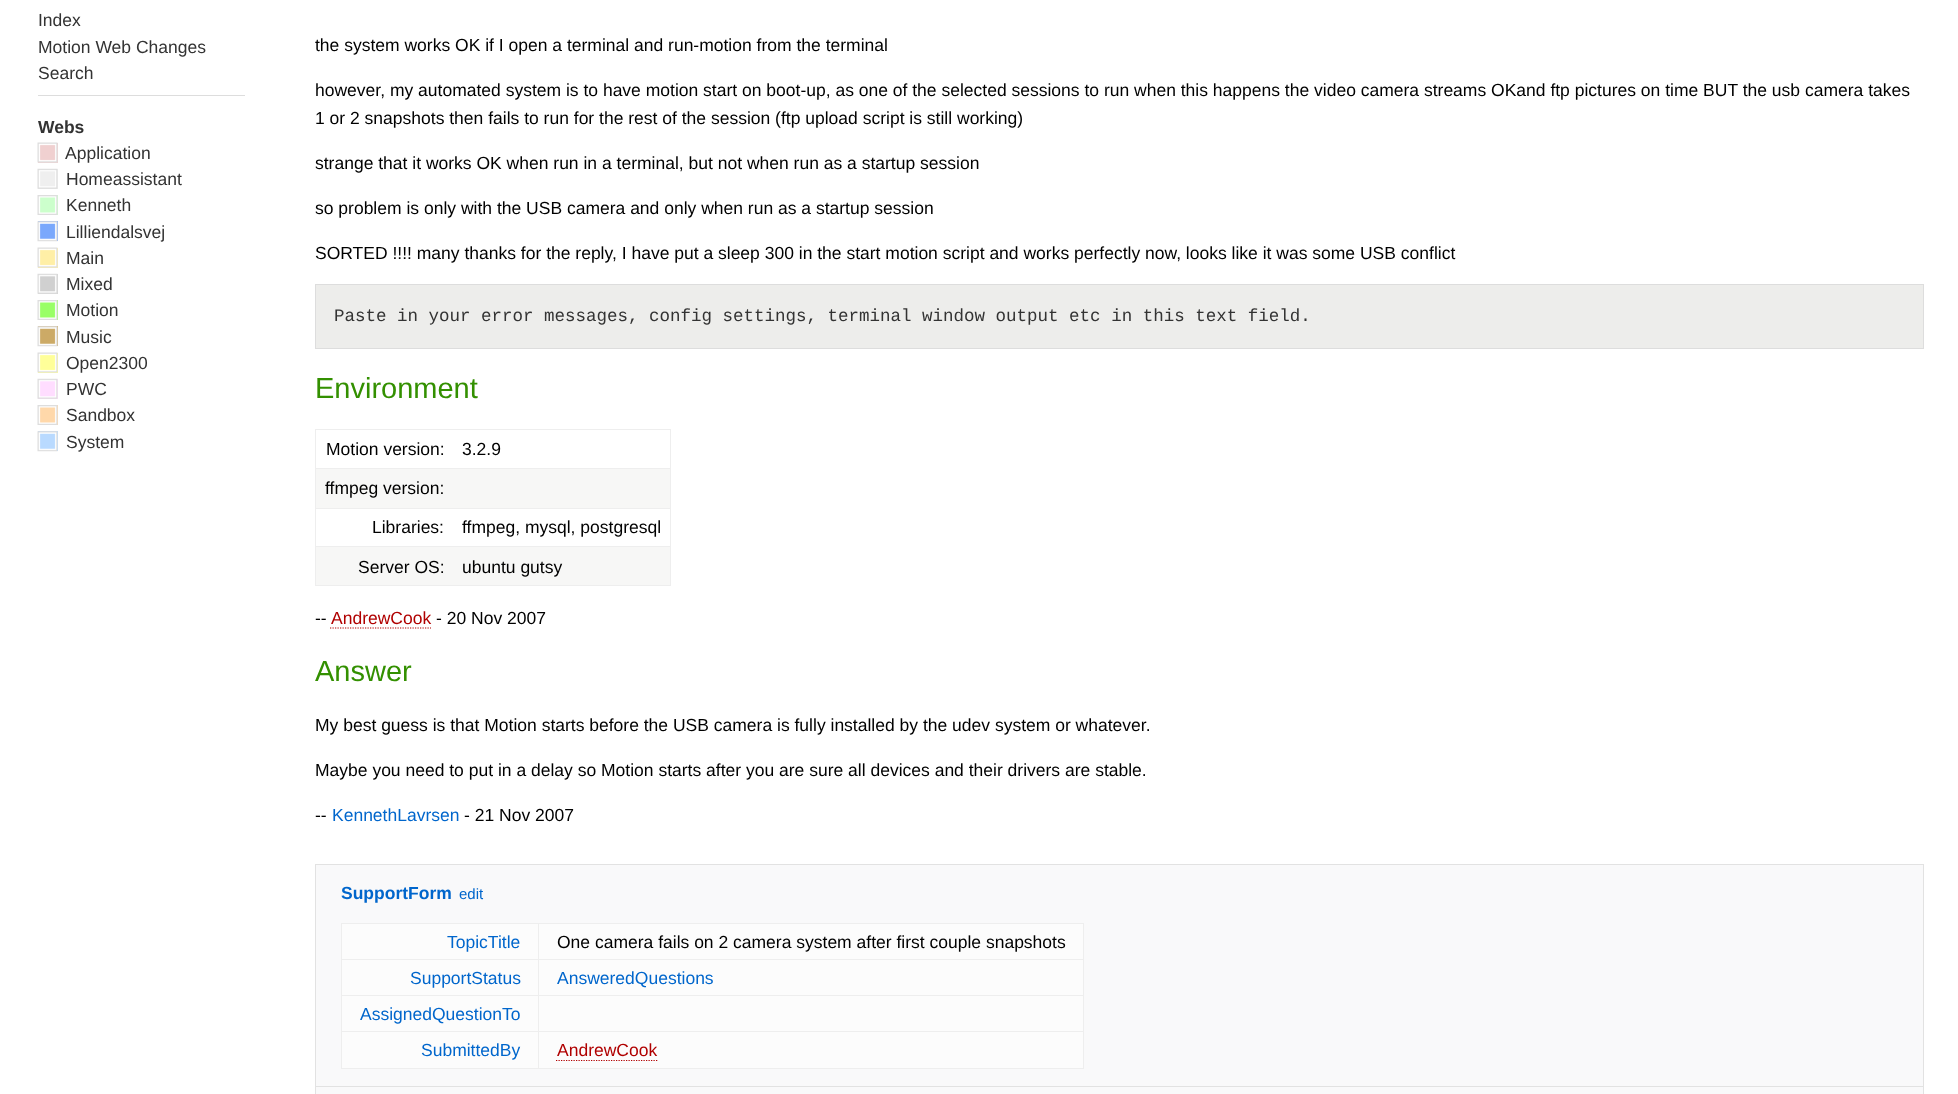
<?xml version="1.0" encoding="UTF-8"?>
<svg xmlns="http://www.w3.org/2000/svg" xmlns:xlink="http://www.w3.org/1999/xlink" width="1958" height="1094">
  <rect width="100%" height="100%" fill="#ffffff" />
  <rect x="38" y="95" width="207" height="1" fill="#dddddd" />
  <rect x="38" y="143" width="20" height="20" fill="#f0d0d0" />
  <image x="37" y="142" width="21" height="21" xlink:href="image1.png" />
  <rect x="38" y="169" width="20" height="20" fill="#efefef" />
  <image x="37" y="168" width="21" height="21" xlink:href="image2.png" />
  <rect x="39" y="195" width="19" height="20" fill="#ccffcc" />
  <image x="37" y="195" width="21" height="20" xlink:href="image3.png" />
  <rect x="38" y="221" width="20" height="20" fill="#7aa8fc" />
  <image x="37" y="221" width="21" height="21" xlink:href="image4.png" />
  <rect x="38" y="248" width="20" height="20" fill="#ffefa6" />
  <image x="37" y="247" width="21" height="21" xlink:href="image5.png" />
  <rect x="38" y="274" width="20" height="20" fill="#d0d0d0" />
  <image x="37" y="273" width="21" height="21" xlink:href="image6.png" />
  <rect x="39" y="300" width="19" height="20" fill="#99ff66" />
  <image x="37" y="300" width="21" height="20" xlink:href="image7.png" />
  <rect x="38" y="326" width="20" height="20" fill="#ccaa66" />
  <image x="37" y="326" width="21" height="21" xlink:href="image8.png" />
  <rect x="38" y="353" width="20" height="20" fill="#ffff99" />
  <image x="37" y="352" width="21" height="21" xlink:href="image9.png" />
  <rect x="38" y="379" width="20" height="20" fill="#ffddff" />
  <image x="37" y="378" width="21" height="21" xlink:href="image10.png" />
  <rect x="39" y="405" width="19" height="20" fill="#ffd8aa" />
  <image x="37" y="405" width="21" height="20" xlink:href="image11.png" />
  <rect x="38" y="431" width="20" height="20" fill="#b9daff" />
  <image x="37" y="431" width="21" height="21" xlink:href="image12.png" />
  <rect x="315.5" y="284.5" width="1608" height="64" fill="#ededeb" stroke="#dddddd" />
  <rect x="315" y="429" width="356" height="1" fill="#eeeeee" />
  <rect x="670" y="429" width="1" height="157" fill="#eeeeee" />
  <rect x="315" y="585" width="356" height="1" fill="#eeeeee" />
  <rect x="315" y="429" width="1" height="157" fill="#eeeeee" />
  <rect x="315" y="468" width="356" height="1" fill="#eeeeee" />
  <rect x="316" y="469" width="354" height="39" fill="#f7f7f6" />
  <rect x="315" y="508" width="356" height="1" fill="#eeeeee" />
  <rect x="316" y="547" width="354" height="38" fill="#f7f7f6" />
  <rect x="315" y="546" width="356" height="1" fill="#eeeeee" />
  <path d="M 330 628 h 101" fill="none" stroke="#b00000" stroke-width="1.2" stroke-dasharray="1.25 1.25" />
  <rect x="315.5" y="864.5" width="1608" height="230" fill="#f9f9fa" stroke="#e2e2e2" />
  <rect x="342" y="924" width="741" height="144" fill="#fcfcfc" />
  <rect x="341" y="923" width="743" height="1" fill="#eeeeee" />
  <rect x="1083" y="923" width="1" height="146" fill="#eeeeee" />
  <rect x="341" y="1068" width="743" height="1" fill="#eeeeee" />
  <rect x="341" y="923" width="1" height="146" fill="#eeeeee" />
  <rect x="538" y="959" width="546" height="1" fill="#eeeeee" />
  <rect x="538" y="995" width="546" height="1" fill="#eeeeee" />
  <rect x="538" y="1031" width="546" height="1" fill="#eeeeee" />
  <rect x="538" y="1031" width="1" height="38" fill="#eeeeee" />
  <rect x="341" y="1031" width="198" height="1" fill="#eeeeee" />
  <rect x="538" y="995" width="1" height="38" fill="#eeeeee" />
  <rect x="341" y="995" width="198" height="1" fill="#eeeeee" />
  <rect x="538" y="959" width="1" height="37" fill="#eeeeee" />
  <rect x="341" y="959" width="198" height="1" fill="#eeeeee" />
  <rect x="538" y="923" width="1" height="37" fill="#eeeeee" />
  <path d="M 556 1060.5 h 101.5" fill="none" stroke="#b00000" stroke-width="1.2" stroke-dasharray="1.25 1.25" />
  <rect x="316" y="1086" width="1607" height="1" fill="#e2e2e2" />
  <text x="38" y="26" style="font-family: Liberation Sans; font-size: 17.5px; fill: #333333">Index</text>
  <text x="38" y="53" style="font-family: Liberation Sans; font-size: 17.5px; fill: #333333">Motion Web Changes</text>
  <text x="38" y="79" style="font-family: Liberation Sans; font-size: 17.5px; fill: #333333">Search</text>
  <text x="38" y="133" style="font-family: Liberation Sans; font-size: 17.5px; font-weight: bold; fill: #333333">Webs</text>
  <text x="65" y="159" style="font-family: Liberation Sans; font-size: 17.5px; fill: #333333">Application</text>
  <text x="66" y="185" style="font-family: Liberation Sans; font-size: 17.5px; fill: #333333">Homeassistant</text>
  <text x="66" y="211" style="font-family: Liberation Sans; font-size: 17.5px; fill: #333333">Kenneth</text>
  <text x="66" y="238" style="font-family: Liberation Sans; font-size: 17.5px; fill: #333333">Lilliendalsvej</text>
  <text x="66" y="264" style="font-family: Liberation Sans; font-size: 17.5px; fill: #333333">Main</text>
  <text x="66" y="290" style="font-family: Liberation Sans; font-size: 17.5px; fill: #333333">Mixed</text>
  <text x="66" y="316" style="font-family: Liberation Sans; font-size: 17.5px; fill: #333333">Motion</text>
  <text x="66" y="343" style="font-family: Liberation Sans; font-size: 17.5px; fill: #333333">Music</text>
  <text x="66" y="369" style="font-family: Liberation Sans; font-size: 17.5px; fill: #333333">Open2300</text>
  <text x="66" y="395" style="font-family: Liberation Sans; font-size: 17.5px; fill: #333333">PWC</text>
  <text x="66" y="421" style="font-family: Liberation Sans; font-size: 17.5px; fill: #333333">Sandbox</text>
  <text x="66" y="448" style="font-family: Liberation Sans; font-size: 17.5px; fill: #333333">System</text>
  <text x="315" y="51" style="font-family: Liberation Sans; font-size: 17.5px; fill: #000000">the system works OK if I open a terminal and run-motion from the terminal</text>
  <text x="315" y="96" style="font-family: Liberation Sans; font-size: 17.5px; fill: #000000">however, my automated system is to have motion start on boot-up, as one of the selected sessions to run when this happens the video camera streams OKand ftp pictures on time BUT the usb camera takes</text>
  <text x="315" y="124" style="font-family: Liberation Sans; font-size: 17.5px; fill: #000000">1 or 2 snapshots then fails to run for the rest of the session (ftp upload script is still working)</text>
  <text x="315" y="169" style="font-family: Liberation Sans; font-size: 17.5px; fill: #000000">strange that it works OK when run in a terminal, but not when run as a startup session</text>
  <text x="315" y="214" style="font-family: Liberation Sans; font-size: 17.5px; fill: #000000">so problem is only with the USB camera and only when run as a startup session</text>
  <text x="315" y="259" style="font-family: Liberation Sans; font-size: 17.5px; fill: #000000">SORTED !!!! many thanks for the reply, I have put a sleep 300 in the start motion script and works perfectly now, looks like it was some USB conflict</text>
  <text x="334" y="321" style="font-family: Liberation Mono; font-size: 17.5px; fill: #333333">Paste in your error messages, config settings, terminal window output etc in this text field.</text>
  <text x="315" y="398" style="font-family: Liberation Sans; font-size: 29px; fill: #339000">Environment</text>
  <text x="326" y="455" style="font-family: Liberation Sans; font-size: 17.5px; fill: #000000">Motion version:</text>
  <text x="462" y="455" style="font-family: Liberation Sans; font-size: 17.5px; fill: #000000">3.2.9</text>
  <text x="325" y="494" style="font-family: Liberation Sans; font-size: 17.5px; fill: #000000">ffmpeg version:</text>
  <text x="372" y="533" style="font-family: Liberation Sans; font-size: 17.5px; fill: #000000">Libraries:</text>
  <text x="462" y="533" style="font-family: Liberation Sans; font-size: 17.5px; fill: #000000">ffmpeg, mysql, postgresql</text>
  <text x="358" y="573" style="font-family: Liberation Sans; font-size: 17.5px; fill: #000000">Server OS:</text>
  <text x="462" y="573" style="font-family: Liberation Sans; font-size: 17.5px; fill: #000000">ubuntu gutsy</text>
  <text x="315" y="624" style="font-family: Liberation Sans; font-size: 17.5px; fill: #000000">--</text>
  <text x="331" y="624" style="font-family: Liberation Sans; font-size: 17.5px; fill: #b00000">AndrewCook</text>
  <text x="436" y="624" style="font-family: Liberation Sans; font-size: 17.5px; fill: #000000">- 20 Nov 2007</text>
  <text x="315" y="681" style="font-family: Liberation Sans; font-size: 29px; fill: #339000">Answer</text>
  <text x="315" y="731" style="font-family: Liberation Sans; font-size: 17.5px; fill: #000000">My best guess is that Motion starts before the USB camera is fully installed by the udev system or whatever.</text>
  <text x="315" y="776" style="font-family: Liberation Sans; font-size: 17.5px; fill: #000000">Maybe you need to put in a delay so Motion starts after you are sure all devices and their drivers are stable.</text>
  <text x="315" y="821" style="font-family: Liberation Sans; font-size: 17.5px; fill: #000000">--</text>
  <text x="332" y="821" style="font-family: Liberation Sans; font-size: 17.5px; fill: #0066cc">KennethLavrsen</text>
  <text x="464" y="821" style="font-family: Liberation Sans; font-size: 17.5px; fill: #000000">- 21 Nov 2007</text>
  <text x="341" y="899" style="font-family: Liberation Sans; font-size: 17.5px; font-weight: bold; fill: #0066cc">SupportForm</text>
  <text x="459" y="899" style="font-family: Liberation Sans; font-size: 15px; fill: #0066cc">edit</text>
  <text x="447" y="948" style="font-family: Liberation Sans; font-size: 17.5px; fill: #0066cc">TopicTitle</text>
  <text x="557" y="948" style="font-family: Liberation Sans; font-size: 17.5px; fill: #000000">One camera fails on 2 camera system after first couple snapshots</text>
  <text x="410" y="984" style="font-family: Liberation Sans; font-size: 17.5px; fill: #0066cc">SupportStatus</text>
  <text x="557" y="984" style="font-family: Liberation Sans; font-size: 17.5px; fill: #0066cc">AnsweredQuestions</text>
  <text x="360" y="1020" style="font-family: Liberation Sans; font-size: 17.5px; fill: #0066cc">AssignedQuestionTo</text>
  <text x="421" y="1056" style="font-family: Liberation Sans; font-size: 17.5px; fill: #0066cc">SubmittedBy</text>
  <text x="557" y="1056" style="font-family: Liberation Sans; font-size: 17.5px; fill: #b00000">AndrewCook</text>
</svg>
